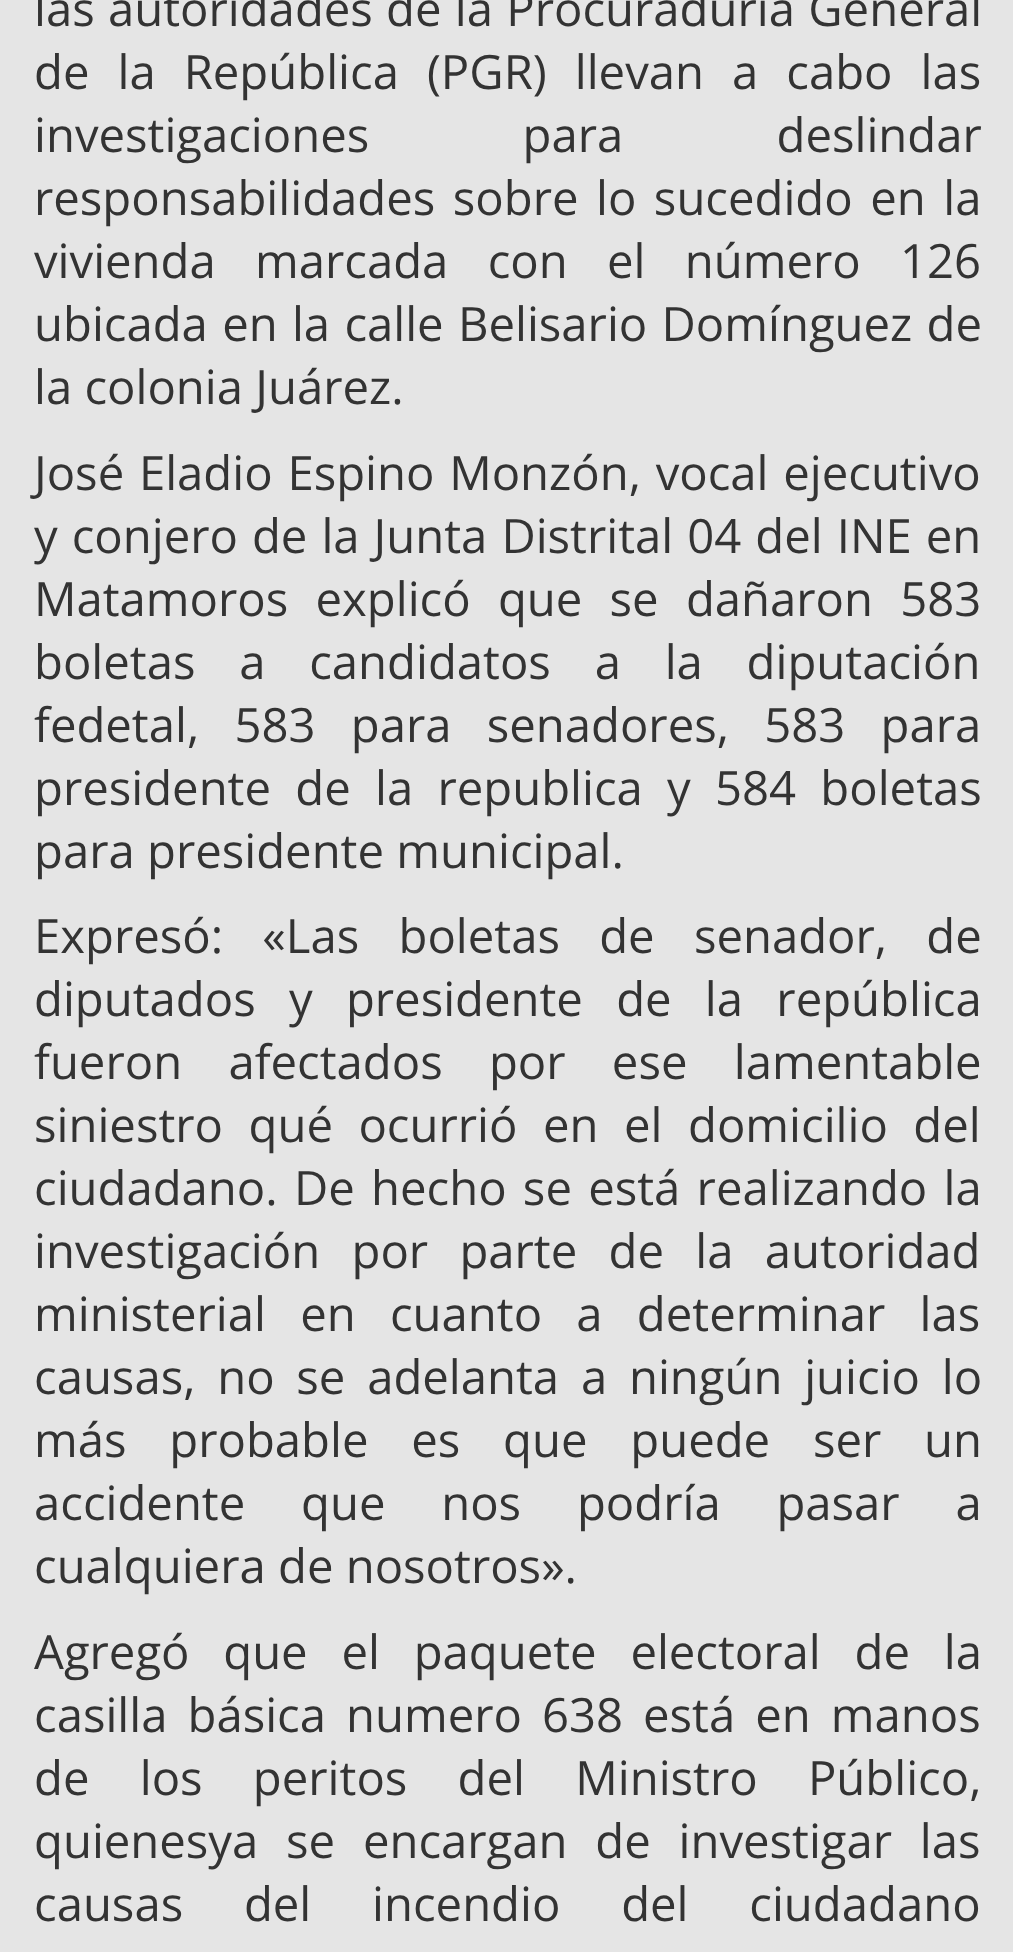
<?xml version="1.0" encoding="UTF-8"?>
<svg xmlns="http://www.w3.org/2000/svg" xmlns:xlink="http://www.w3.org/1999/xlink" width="1013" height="1952">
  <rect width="100%" height="100%" fill="#e5e5e5" />
  <text x="34" y="26" word-spacing="1" style="font-family: Open Sans; font-size: 47.25px; fill: #333333">las autoridades de la Procuraduría General</text>
  <text x="34" y="89" word-spacing="15.75" style="font-family: Open Sans; font-size: 47.25px; fill: #333333">de la República (PGR) llevan a cabo las</text>
  <text x="34" y="152" word-spacing="141" style="font-family: Open Sans; font-size: 47.25px; fill: #333333">investigaciones para deslindar</text>
  <text x="34" y="215" word-spacing="5.25" style="font-family: Open Sans; font-size: 47.25px; fill: #333333">responsabilidades sobre lo sucedido en la</text>
  <text x="34" y="278" word-spacing="27" style="font-family: Open Sans; font-size: 47.25px; fill: #333333">vivienda marcada con el número 126</text>
  <text x="34" y="341" word-spacing="2" style="font-family: Open Sans; font-size: 47.25px; fill: #333333">ubicada en la calle Belisario Domínguez de</text>
  <text x="34" y="404" style="font-family: Open Sans; font-size: 47.25px; fill: #333333">la colonia Juárez.</text>
  <text x="34" y="490" word-spacing="2.5" style="font-family: Open Sans; font-size: 47.25px; fill: #333333">José Eladio Espino Monzón, vocal ejecutivo</text>
  <text x="34" y="553" word-spacing="1.75" style="font-family: Open Sans; font-size: 47.25px; fill: #333333">y conjero de la Junta Distrital 04 del INE en</text>
  <text x="34" y="616" word-spacing="15" style="font-family: Open Sans; font-size: 47.25px; fill: #333333">Matamoros explicó que se dañaron 583</text>
  <text x="34" y="679" word-spacing="31.5" style="font-family: Open Sans; font-size: 47.25px; fill: #333333">boletas a candidatos a la diputación</text>
  <text x="34" y="742" word-spacing="23" style="font-family: Open Sans; font-size: 47.25px; fill: #333333">fedetal, 583 para senadores, 583 para</text>
  <text x="34" y="805" word-spacing="12" style="font-family: Open Sans; font-size: 47.25px; fill: #333333">presidente de la republica y 584 boletas</text>
  <text x="34" y="868" style="font-family: Open Sans; font-size: 47.25px; fill: #333333">para presidente municipal.</text>
  <text x="34" y="953" word-spacing="27" style="font-family: Open Sans; font-size: 47.25px; fill: #333333">Expresó: «Las boletas de senador, de</text>
  <text x="34" y="1016" word-spacing="21" style="font-family: Open Sans; font-size: 47.25px; fill: #333333">diputados y presidente de la república</text>
  <text x="34" y="1079" word-spacing="34" style="font-family: Open Sans; font-size: 47.25px; fill: #333333">fueron afectados por ese lamentable</text>
  <text x="34" y="1142" word-spacing="13.25" style="font-family: Open Sans; font-size: 47.25px; fill: #333333">siniestro qué ocurrió en el domicilio del</text>
  <text x="34" y="1205" word-spacing="4" style="font-family: Open Sans; font-size: 47.25px; fill: #333333">ciudadano. De hecho se está realizando la</text>
  <text x="34" y="1268" word-spacing="19" style="font-family: Open Sans; font-size: 47.25px; fill: #333333">investigación por parte de la autoridad</text>
  <text x="34" y="1331" word-spacing="22" style="font-family: Open Sans; font-size: 47.25px; fill: #333333">ministerial en cuanto a determinar las</text>
  <text x="34" y="1394" word-spacing="9.5" style="font-family: Open Sans; font-size: 47.25px; fill: #333333">causas, no se adelanta a ningún juicio lo</text>
  <text x="34" y="1457" word-spacing="30.5" style="font-family: Open Sans; font-size: 47.25px; fill: #333333">más probable es que puede ser un</text>
  <text x="34" y="1520" word-spacing="43.5" style="font-family: Open Sans; font-size: 47.25px; fill: #333333">accidente que nos podría pasar a</text>
  <text x="34" y="1583" style="font-family: Open Sans; font-size: 47.25px; fill: #333333">cualquiera de nosotros».</text>
  <text x="34" y="1669" word-spacing="21.5" style="font-family: Open Sans; font-size: 47.25px; fill: #333333">Agregó que el paquete electoral de la</text>
  <text x="34" y="1732" word-spacing="7.75" style="font-family: Open Sans; font-size: 47.25px; fill: #333333">casilla básica numero 638 está en manos</text>
  <text x="34" y="1795" word-spacing="38" style="font-family: Open Sans; font-size: 47.25px; fill: #333333">de los peritos del Ministro Público,</text>
  <text x="34" y="1858" word-spacing="15.5" style="font-family: Open Sans; font-size: 47.25px; fill: #333333">quienesya se encargan de investigar las</text>
  <text x="34" y="1921" word-spacing="48.5" style="font-family: Open Sans; font-size: 47.25px; fill: #333333">causas del incendio del ciudadano</text>
</svg>
